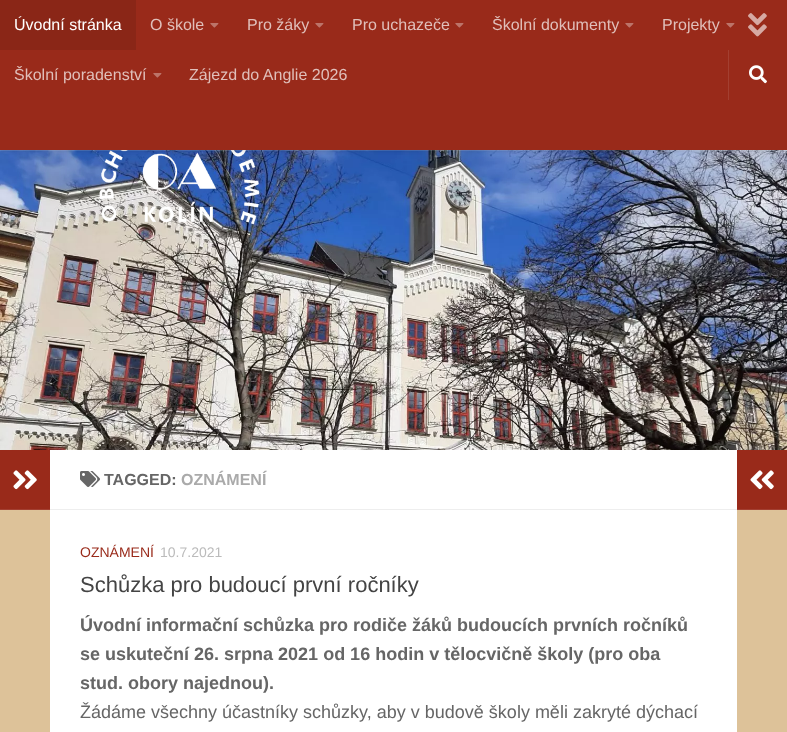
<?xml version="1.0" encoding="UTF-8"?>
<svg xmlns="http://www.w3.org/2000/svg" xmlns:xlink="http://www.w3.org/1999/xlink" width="787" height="732">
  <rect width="100%" height="100%" fill="#ffffff" />
  <image x="0" y="150" width="787" height="300" xlink:href="image4.png" />
  <image x="99" y="150" width="161" height="75" xlink:href="image5.png" />
  <rect y="150" width="787" height="1" fill="#ffffff" fill-opacity="0.15" />
  <rect width="787" height="150" fill="#000000" fill-opacity="0.2" filter="blur(2.5px)" />
  <rect width="787" height="150" fill="#992a1a" />
  <rect width="136" height="50" fill="#8a2617" />
  <image x="210" y="23" width="9" height="5" xlink:href="image1.png" />
  <image x="315" y="23" width="9" height="5" xlink:href="image1.png" />
  <image x="455" y="23" width="9" height="5" xlink:href="image1.png" />
  <image x="625" y="23" width="9" height="5" xlink:href="image1.png" />
  <image x="726" y="23" width="9" height="5" xlink:href="image1.png" />
  <image x="153" y="73" width="9" height="5" xlink:href="image1.png" />
  <image x="748" y="13" width="19" height="24" xlink:href="image2.png" />
  <rect x="728" y="50" width="1" height="50" fill="#a33f31" />
  <image x="749" y="65" width="18" height="19" xlink:href="image3.png" />
  <rect y="510" width="50" height="222" fill="#ddc299" />
  <rect y="450" width="50" height="59" fill="#992a1a" />
  <rect y="509" width="50" height="1" fill="#a33f31" />
  <image x="13" y="470" width="24" height="20" xlink:href="image6.png" />
  <rect x="50" y="509" width="687" height="1" fill="#eeeeee" />
  <image x="80" y="471" width="20" height="16" xlink:href="image7.png" />
  <rect x="737" y="450" width="50" height="59" fill="#992a1a" />
  <rect x="737" y="509" width="50" height="1" fill="#a33f31" />
  <image x="750" y="470" width="24" height="20" xlink:href="image8.png" />
  <rect x="737" y="510" width="50" height="222" fill="#ddc299" />
  <text x="14" y="30" style="font-family: Liberation Sans; font-size: 16px; fill: #ffffff">Úvodní stránka</text>
  <text x="150" y="30" style="font-family: Liberation Sans; font-size: 16px; fill: #e0bfba">O škole</text>
  <text x="247" y="30" style="font-family: Liberation Sans; font-size: 16px; fill: #e0bfba">Pro žáky</text>
  <text x="352" y="30" style="font-family: Liberation Sans; font-size: 16px; fill: #e0bfba">Pro uchazeče</text>
  <text x="492" y="30" style="font-family: Liberation Sans; font-size: 16px; fill: #e0bfba">Školní dokumenty</text>
  <text x="662" y="30" style="font-family: Liberation Sans; font-size: 16px; fill: #e0bfba">Projekty</text>
  <text x="14" y="80" style="font-family: Liberation Sans; font-size: 16px; fill: #e0bfba">Školní poradenství</text>
  <text x="189" y="80" style="font-family: Liberation Sans; font-size: 16px; fill: #e0bfba">Zájezd do Anglie 2026</text>
  <text x="104" y="485" style="font-family: Liberation Sans; font-size: 16px; font-weight: bold; fill: #666666">TAGGED:</text>
  <text x="181" y="485" style="font-family: Liberation Sans; font-size: 16px; font-weight: bold; fill: #aaaaaa">OZNÁMENÍ</text>
  <text x="80" y="557" style="font-family: Liberation Sans; font-size: 14px; fill: #992a1a">OZNÁMENÍ</text>
  <text x="160" y="557" style="font-family: Liberation Sans; font-size: 14px; fill: #bbbbbb">10.7.2021</text>
  <text x="80" y="592" style="font-family: Liberation Sans; font-size: 22px; fill: #444444">Schůzka pro budoucí první ročníky</text>
  <text x="80" y="631" style="font-family: Liberation Sans; font-size: 18px; font-weight: bold; fill: #666666">Úvodní informační schůzka pro rodiče žáků budoucích prvních ročníků</text>
  <text x="80" y="660" style="font-family: Liberation Sans; font-size: 18px; font-weight: bold; fill: #666666">se uskuteční 26. srpna 2021 od 16 hodin v tělocvičně školy (pro oba</text>
  <text x="80" y="689" style="font-family: Liberation Sans; font-size: 18px; font-weight: bold; fill: #666666">stud. obory najednou).</text>
  <text x="80" y="718" style="font-family: Liberation Sans; font-size: 18px; fill: #666666">Žádáme všechny účastníky schůzky, aby v budově školy měli zakryté dýchací</text>
</svg>
